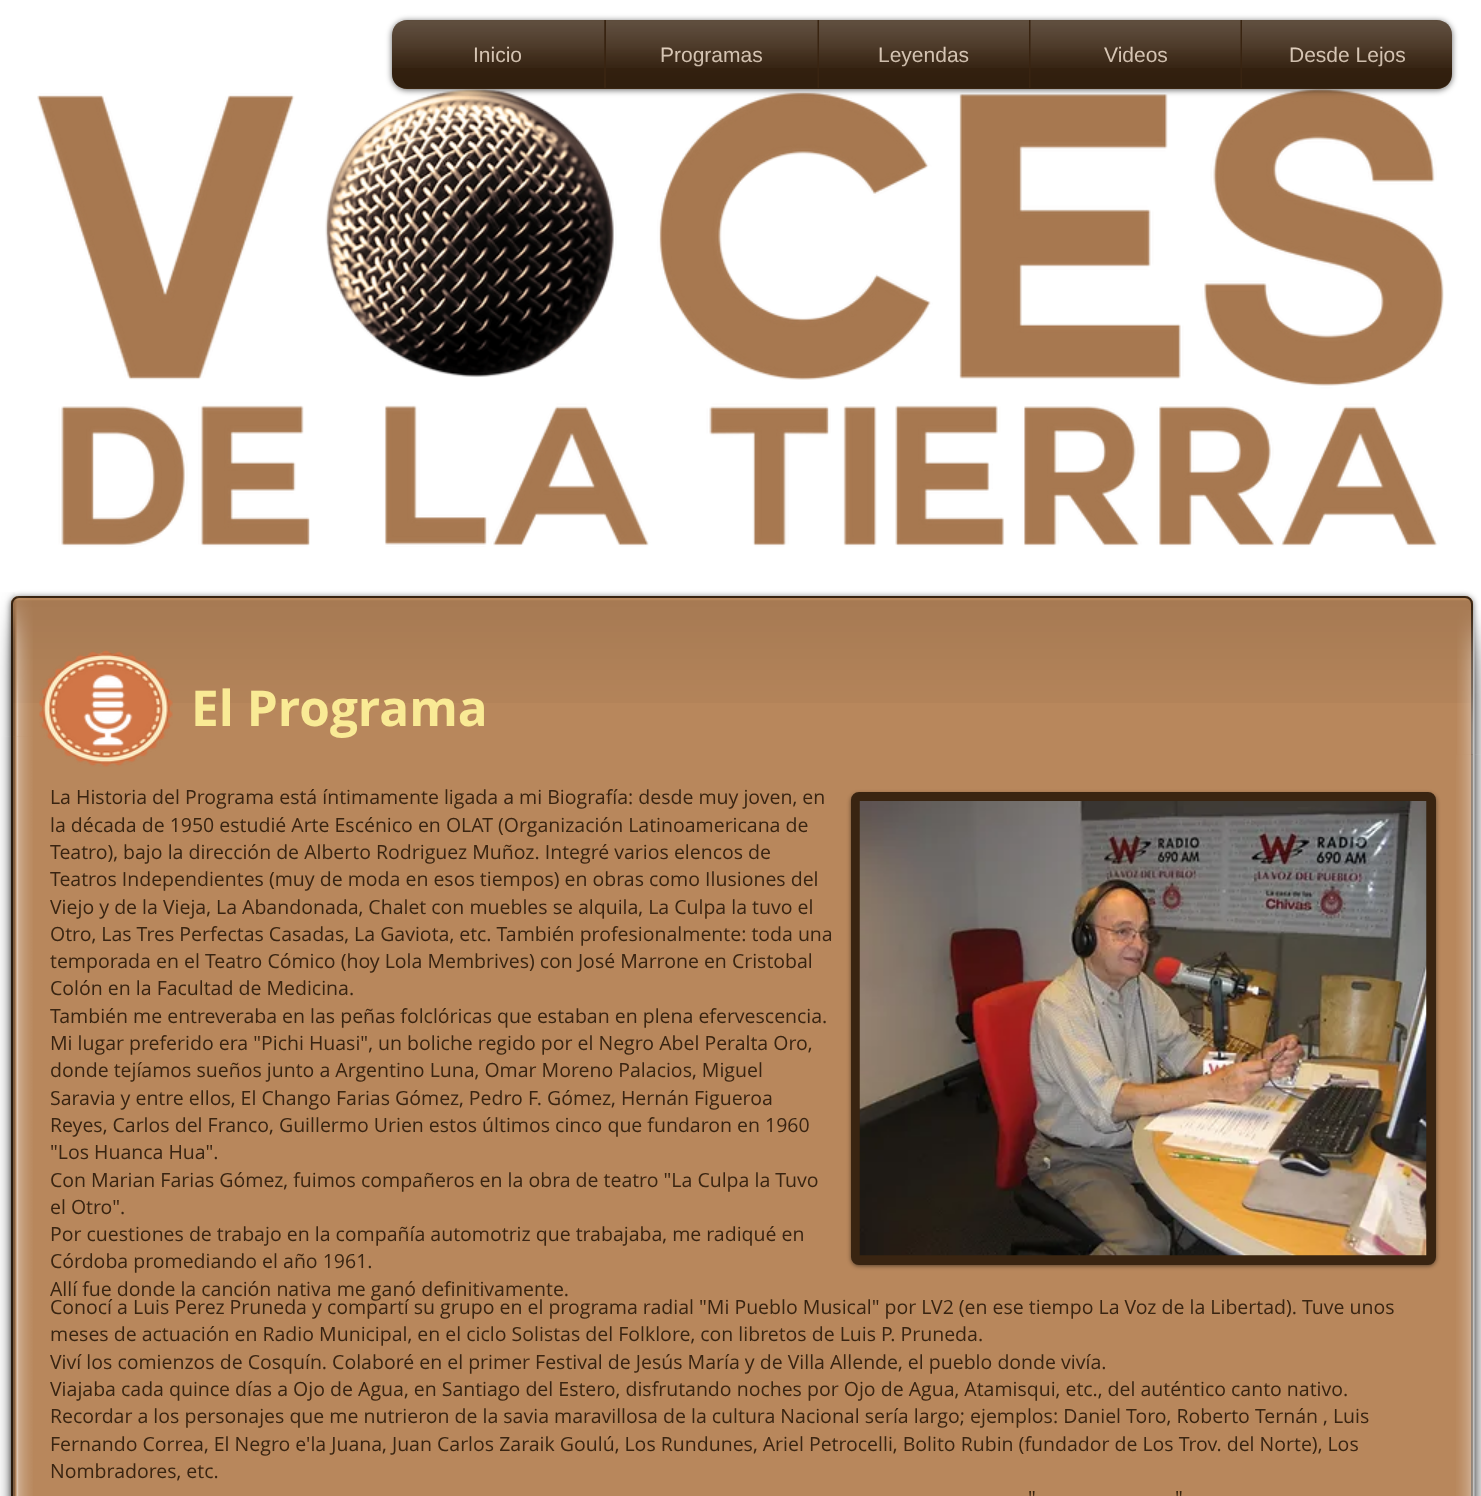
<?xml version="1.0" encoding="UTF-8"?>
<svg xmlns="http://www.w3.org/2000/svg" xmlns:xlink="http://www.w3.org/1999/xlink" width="1481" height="1496">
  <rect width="100%" height="100%" fill="#ffffff" />
  <image x="37" y="89" width="1407" height="458" xlink:href="image13.png" />
  <rect x="392" y="21" width="1060" height="69" rx="15" fill="#000000" fill-opacity="0.6" filter="blur(3px)" />
  <image x="392" y="20" width="1060" height="15" xlink:href="image1.png" />
  <image x="392" y="74" width="1060" height="14" xlink:href="image2.png" />
  <path d="M 407 20 h 198 v 69 h -198 c -8.5 0 -15 -6.5 -15 -15 v -39 c 0 -8.5 6.5 -15 15 -15 z" fill="#392411" />
  <rect x="605" y="20" width="636" height="69" fill="#392411" />
  <path d="M 1241 20 h 196 c 8.5 0 15 6.5 15 15 v 39 c 0 8.5 -6.5 15 -15 15 h -196 z" fill="#392411" />
  <rect x="11" y="597" width="1462" height="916" rx="8" fill="#000000" fill-opacity="0.6" filter="blur(3px)" />
  <rect x="11" y="596" width="1462" height="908" rx="8" fill="#b8875c" />
  <image x="11" y="600" width="1462" height="103" xlink:href="image16.png" />
  <rect x="12" y="597" width="1460" height="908" rx="7" fill="none" stroke="#392411" stroke-width="2" />
  <image x="0" y="592" width="33" height="145" xlink:href="image14.png" />
  <image x="0" y="736" width="33" height="760" xlink:href="image15.png" />
  <image x="39" y="650" width="134" height="117" xlink:href="image17.png" />
  <image x="83" y="674" width="50" height="73" xlink:href="image18.png" />
  <rect x="851" y="794" width="585" height="472" rx="8" fill="#000000" fill-opacity="0.5" filter="blur(2px)" />
  <rect x="855.5" y="796.5" width="576" height="464" rx="3.5" fill="#392411" stroke="#392411" stroke-width="9" />
  <image x="859" y="801" width="568" height="455" xlink:href="image19.png" />
  <image x="1457" y="610" width="24" height="145" xlink:href="image20.png" />
  <image x="1456" y="754" width="25" height="742" xlink:href="image21.png" />
  <text x="473" y="62" style="font-family: Liberation Sans; font-size: 21px; fill: #dbc8b5">Inicio</text>
  <image x="392" y="20" width="213" height="48" xlink:href="image3.png" />
  <image x="392" y="50" width="212" height="38" xlink:href="image4.png" />
  <text x="660" y="62" style="font-family: Liberation Sans; font-size: 21px; fill: #dbc8b5">Programas</text>
  <image x="606" y="20" width="212" height="48" xlink:href="image5.png" />
  <image x="606" y="50" width="212" height="38" xlink:href="image6.png" />
  <text x="878" y="62" style="font-family: Liberation Sans; font-size: 21px; fill: #dbc8b5">Leyendas</text>
  <image x="819" y="20" width="210" height="48" xlink:href="image7.png" />
  <image x="819" y="50" width="210" height="38" xlink:href="image8.png" />
  <text x="1104" y="62" style="font-family: Liberation Sans; font-size: 21px; fill: #dbc8b5">Videos</text>
  <image x="1030" y="20" width="211" height="48" xlink:href="image9.png" />
  <image x="1030" y="50" width="211" height="38" xlink:href="image10.png" />
  <text x="1289" y="62" style="font-family: Liberation Sans; font-size: 21px; fill: #dbc8b5">Desde Lejos</text>
  <image x="1242" y="20" width="210" height="48" xlink:href="image11.png" />
  <image x="1242" y="50" width="210" height="38" xlink:href="image12.png" />
  <text x="191" y="726" style="font-family: Open Sans; font-size: 49.5px; font-weight: bold; fill: #f9ea95">El Programa</text>
  <text x="50" y="804" style="font-family: Open Sans; font-size: 19.5px; fill: #392411">La Historia del Programa está íntimamente ligada a mi Biografía: desde muy joven, en</text>
  <text x="50" y="832" style="font-family: Open Sans; font-size: 19.5px; fill: #392411">la década de 1950 estudié Arte Escénico en OLAT (Organización Latinoamericana de</text>
  <text x="50" y="859" style="font-family: Open Sans; font-size: 19.5px; fill: #392411">Teatro), bajo la dirección de Alberto Rodriguez Muñoz. Integré varios elencos de</text>
  <text x="50" y="886" style="font-family: Open Sans; font-size: 19.5px; fill: #392411">Teatros Independientes (muy de moda en esos tiempos) en obras como Ilusiones del</text>
  <text x="50" y="914" style="font-family: Open Sans; font-size: 19.5px; fill: #392411">Viejo y de la Vieja, La Abandonada, Chalet con muebles se alquila, La Culpa la tuvo el</text>
  <text x="50" y="941" style="font-family: Open Sans; font-size: 19.5px; fill: #392411">Otro, Las Tres Perfectas Casadas, La Gaviota, etc. También profesionalmente: toda una</text>
  <text x="50" y="968" style="font-family: Open Sans; font-size: 19.5px; fill: #392411">temporada en el Teatro Cómico (hoy Lola Membrives) con José Marrone en Cristobal</text>
  <text x="50" y="995" style="font-family: Open Sans; font-size: 19.5px; fill: #392411">Colón en la Facultad de Medicina.</text>
  <text x="50" y="1023" style="font-family: Open Sans; font-size: 19.5px; fill: #392411">También me entreveraba en las peñas folclóricas que estaban en plena efervescencia.</text>
  <text x="50" y="1050" style="font-family: Open Sans; font-size: 19.5px; fill: #392411">Mi lugar preferido era "Pichi Huasi", un boliche regido por el Negro Abel Peralta Oro,</text>
  <text x="50" y="1077" style="font-family: Open Sans; font-size: 19.5px; fill: #392411">donde tejíamos sueños junto a Argentino Luna, Omar Moreno Palacios, Miguel</text>
  <text x="50" y="1105" style="font-family: Open Sans; font-size: 19.5px; fill: #392411">Saravia y entre ellos, El Chango Farias Gómez, Pedro F. Gómez, Hernán Figueroa</text>
  <text x="50" y="1132" style="font-family: Open Sans; font-size: 19.5px; fill: #392411">Reyes, Carlos del Franco, Guillermo Urien estos últimos cinco que fundaron en 1960</text>
  <text x="50" y="1159" style="font-family: Open Sans; font-size: 19.5px; fill: #392411">"Los Huanca Hua".</text>
  <text x="50" y="1187" style="font-family: Open Sans; font-size: 19.5px; fill: #392411">Con Marian Farias Gómez, fuimos compañeros en la obra de teatro "La Culpa la Tuvo</text>
  <text x="50" y="1214" style="font-family: Open Sans; font-size: 19.5px; fill: #392411">el Otro".</text>
  <text x="50" y="1241" style="font-family: Open Sans; font-size: 19.5px; fill: #392411">Por cuestiones de trabajo en la compañía automotriz que trabajaba, me radiqué en</text>
  <text x="50" y="1268" style="font-family: Open Sans; font-size: 19.5px; fill: #392411">Córdoba promediando el año 1961.</text>
  <text x="50" y="1296" style="font-family: Open Sans; font-size: 19.5px; fill: #392411">Allí fue donde la canción nativa me ganó definitivamente.</text>
  <text x="50" y="1314" style="font-family: Open Sans; font-size: 19.5px; fill: #392411">Conocí a Luis Perez Pruneda y compartí su grupo en el programa radial "Mi Pueblo Musical" por LV2 (en ese tiempo La Voz de la Libertad). Tuve unos</text>
  <text x="50" y="1341" style="font-family: Open Sans; font-size: 19.5px; fill: #392411">meses de actuación en Radio Municipal, en el ciclo Solistas del Folklore, con libretos de Luis P. Pruneda.</text>
  <text x="50" y="1369" style="font-family: Open Sans; font-size: 19.5px; fill: #392411">Viví los comienzos de Cosquín. Colaboré en el primer Festival de Jesús María y de Villa Allende, el pueblo donde vivía.</text>
  <text x="50" y="1396" style="font-family: Open Sans; font-size: 19.5px; fill: #392411">Viajaba cada quince días a Ojo de Agua, en Santiago del Estero, disfrutando noches por Ojo de Agua, Atamisqui, etc., del auténtico canto nativo.</text>
  <text x="50" y="1423" style="font-family: Open Sans; font-size: 19.5px; fill: #392411">Recordar a los personajes que me nutrieron de la savia maravillosa de la cultura Nacional sería largo; ejemplos: Daniel Toro, Roberto Ternán , Luis</text>
  <text x="50" y="1451" style="font-family: Open Sans; font-size: 19.5px; fill: #392411">Fernando Correa, El Negro e'la Juana, Juan Carlos Zaraik Goulú, Los Rundunes, Ariel Petrocelli, Bolito Rubin (fundador de Los Trov. del Norte), Los</text>
  <text x="50" y="1478" style="font-family: Open Sans; font-size: 19.5px; fill: #392411">Nombradores, etc.</text>
  <text x="1028" y="1505" style="font-family: Open Sans; font-size: 19.5px; fill: #392411">"</text>
  <text x="1175" y="1505" style="font-family: Open Sans; font-size: 19.5px; fill: #392411">"</text>
</svg>
